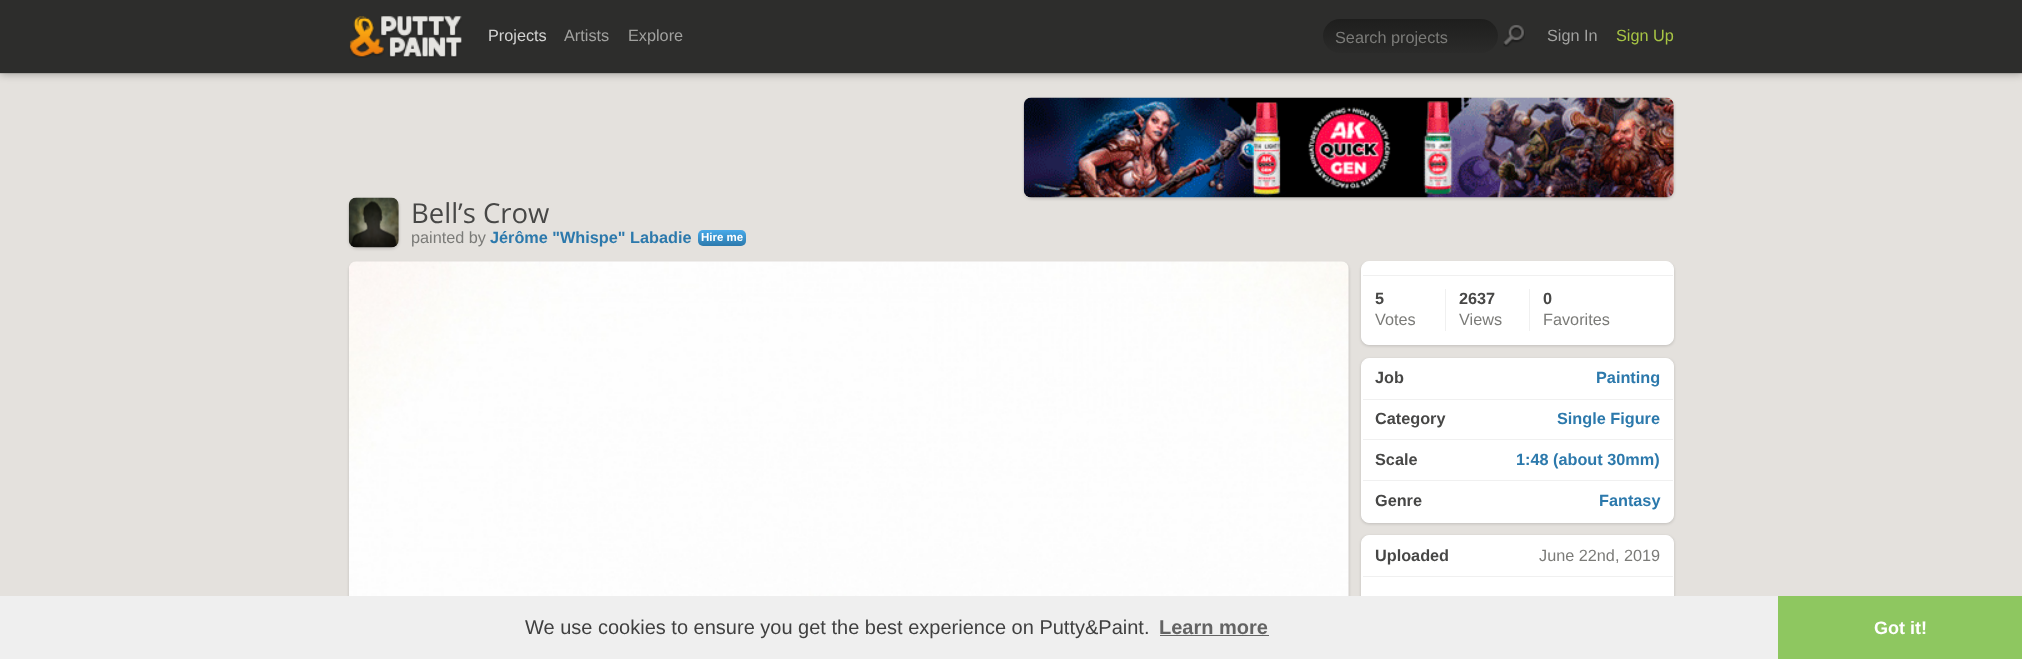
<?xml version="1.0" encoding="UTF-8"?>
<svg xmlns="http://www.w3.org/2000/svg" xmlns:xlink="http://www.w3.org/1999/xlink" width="2022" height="659">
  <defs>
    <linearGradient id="g1" gradientUnits="userSpaceOnUse" x1="1410" y1="19" x2="1410" y2="53"><stop offset="0" stop-color="#1e1e1d" /><stop offset="1" stop-color="#2b2b2a" /></linearGradient>
    <linearGradient id="g2" gradientUnits="userSpaceOnUse" x1="722" y1="230" x2="722" y2="246"><stop offset="0" stop-color="#48aaea" /><stop offset="1" stop-color="#2c79ac" /></linearGradient>
    <clipPath id="clip1"><rect x="1335" y="28" width="150" height="18" /></clipPath>
  </defs>
  <rect width="100%" height="100%" fill="#e4e1dd" />
  <rect y="1" width="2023" height="73" fill="#000000" fill-opacity="0.1" filter="blur(0.5px)" />
  <rect y="1" width="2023" height="73" fill="#000000" fill-opacity="0.3" filter="blur(4px)" />
  <rect width="2022" height="73" fill="#2d2d2c" />
  <image x="349" y="16" width="113" height="42" xlink:href="image1.png" />
  <rect x="1323" y="19" width="175" height="34" rx="17" fill="url(#g1)" />
  <image x="1503" y="25" width="22" height="22" xlink:href="image2.png" />
  <rect x="1024" y="99" width="650" height="100" rx="8" fill="#000000" fill-opacity="0.15" filter="blur(1.5px)" />
  <image x="1023" y="97" width="651" height="101" xlink:href="image3.png" />
  <rect x="349" y="199" width="50" height="50" rx="8" fill="#000000" fill-opacity="0.15" filter="blur(1.5px)" />
  <image x="348" y="197" width="51" height="51" xlink:href="image4.png" />
  <rect x="698" y="230" width="48" height="16" rx="5" fill="url(#g2)" />
  <rect x="349" y="263" width="1000" height="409" rx="8" fill="#000000" fill-opacity="0.15" filter="blur(1.5px)" />
  <image x="349" y="261" width="1000" height="335" xlink:href="image5.png" />
  <rect x="1361" y="263" width="313" height="83" rx="8" fill="#000000" fill-opacity="0.15" filter="blur(1.5px)" />
  <rect x="1361.5" y="261.5" width="312" height="83" rx="7.5" fill="#ffffff" stroke="#ffffff" />
  <rect x="1363" y="275" width="310" height="1" fill="#f0f0f0" />
  <rect x="1445" y="289" width="1" height="42" fill="#f0f0f0" />
  <rect x="1529" y="289" width="1" height="42" fill="#f0f0f0" />
  <rect x="1361" y="359" width="313" height="165" rx="8" fill="#000000" fill-opacity="0.15" filter="blur(1.5px)" />
  <rect x="1361.5" y="358.5" width="312" height="164" rx="7.5" fill="#ffffff" stroke="#ffffff" />
  <rect x="1363" y="399" width="310" height="1" fill="#f0f0f0" />
  <rect x="1363" y="439" width="310" height="1" fill="#f0f0f0" />
  <rect x="1363" y="480" width="310" height="1" fill="#f0f0f0" />
  <rect x="1361" y="536" width="313" height="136" rx="8" fill="#000000" fill-opacity="0.15" filter="blur(1.5px)" />
  <rect x="1361.5" y="535.5" width="312" height="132" rx="7.5" fill="#ffffff" stroke="#ffffff" />
  <rect x="1363" y="576" width="310" height="1" fill="#f0f0f0" />
  <rect y="596" width="1778" height="63" fill="#efefef" />
  <rect x="1160" y="635" width="109" height="1" fill="#636363" />
  <rect x="1778" y="596" width="244" height="63" fill="#8ec760" />
  <text x="488" y="41" style="font-family: Liberation Sans; font-size: 16.25px; fill: #d3d3d2">Projects</text>
  <text x="564" y="41" style="font-family: Liberation Sans; font-size: 16.25px; fill: #a1a19f">Artists</text>
  <text x="628" y="41" style="font-family: Liberation Sans; font-size: 16.25px; fill: #a1a19f">Explore</text>
  <g clip-path="url(#clip1)">
    <text x="1335" y="43" style="font-family: Liberation Sans; font-size: 16.25px; fill: #7b7b78">Search projects</text>
  </g>
  <text x="1547" y="41" style="font-family: Liberation Sans; font-size: 16.25px; fill: #a1a19f">Sign In</text>
  <text x="1616" y="41" style="font-family: Liberation Sans; font-size: 16.25px; fill: #a7c444">Sign Up</text>
  <text x="411" y="223" style="font-family: Open Sans; font-size: 27.5px; fill: #474746">Bell’s Crow</text>
  <text x="411" y="243" style="font-family: Liberation Sans; font-size: 16.25px; fill: #7b7b78">painted by</text>
  <text x="490" y="243" style="font-family: Liberation Sans; font-size: 16.25px; font-weight: bold; fill: #2c79ac">Jérôme "Whispe" Labadie</text>
  <text x="701" y="241" style="font-family: Liberation Sans; font-size: 11.5px; font-weight: bold; fill: #ffffff">Hire me</text>
  <text x="1375" y="304" style="font-family: Liberation Sans; font-size: 16.25px; font-weight: bold; fill: #474746">5</text>
  <text x="1375" y="325" style="font-family: Liberation Sans; font-size: 16.25px; fill: #7b7b78">Votes</text>
  <text x="1459" y="304" style="font-family: Liberation Sans; font-size: 16.25px; font-weight: bold; fill: #474746">2637</text>
  <text x="1459" y="325" style="font-family: Liberation Sans; font-size: 16.25px; fill: #7b7b78">Views</text>
  <text x="1543" y="304" style="font-family: Liberation Sans; font-size: 16.25px; font-weight: bold; fill: #474746">0</text>
  <text x="1543" y="325" style="font-family: Liberation Sans; font-size: 16.25px; fill: #7b7b78">Favorites</text>
  <text x="1375" y="383" style="font-family: Liberation Sans; font-size: 16.25px; font-weight: bold; fill: #474746">Job</text>
  <text x="1596" y="383" style="font-family: Liberation Sans; font-size: 16.25px; font-weight: bold; fill: #2c79ac">Painting</text>
  <text x="1375" y="424" style="font-family: Liberation Sans; font-size: 16.25px; font-weight: bold; fill: #474746">Category</text>
  <text x="1557" y="424" style="font-family: Liberation Sans; font-size: 16.25px; font-weight: bold; fill: #2c79ac">Single Figure</text>
  <text x="1375" y="465" style="font-family: Liberation Sans; font-size: 16.25px; font-weight: bold; fill: #474746">Scale</text>
  <text x="1516" y="465" style="font-family: Liberation Sans; font-size: 16.25px; font-weight: bold; fill: #2c79ac">1:48 (about 30mm)</text>
  <text x="1375" y="506" style="font-family: Liberation Sans; font-size: 16.25px; font-weight: bold; fill: #474746">Genre</text>
  <text x="1599" y="506" style="font-family: Liberation Sans; font-size: 16.25px; font-weight: bold; fill: #2c79ac">Fantasy</text>
  <text x="1375" y="561" style="font-family: Liberation Sans; font-size: 16.25px; font-weight: bold; fill: #474746">Uploaded</text>
  <text x="1539" y="561" style="font-family: Liberation Sans; font-size: 16.25px; fill: #7b7b78">June 22nd, 2019</text>
  <text x="525" y="634" style="font-family: Liberation Sans; font-size: 20px; fill: #404040">We use cookies to ensure you get the best experience on Putty&amp;Paint.</text>
  <text x="1159" y="634" style="font-family: Liberation Sans; font-size: 20px; font-weight: bold; fill: #636363">Learn more</text>
  <text x="1874" y="634" style="font-family: Liberation Sans; font-size: 18px; font-weight: bold; fill: #ffffff">Got it!</text>
</svg>
